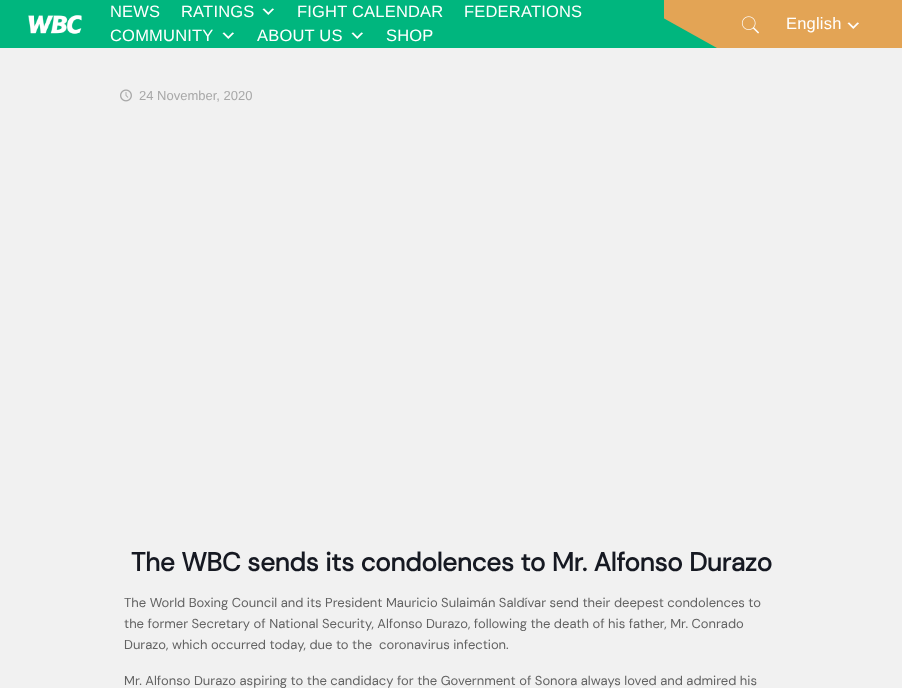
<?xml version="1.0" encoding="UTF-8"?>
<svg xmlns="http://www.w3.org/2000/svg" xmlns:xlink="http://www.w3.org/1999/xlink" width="902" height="688">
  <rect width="100%" height="100%" fill="#f1f1f1" />
  <rect width="717" height="48" fill="#00b67e" />
  <path d="M 631 0 l 86 48 h 185 v -48 z" fill="#e3a455" />
  <image x="28" y="15" width="54" height="19" xlink:href="image1.png" />
  <rect x="631" width="33" height="19" fill="#00b67e" />
  <image x="262" y="8" width="12" height="7" xlink:href="image2.png" />
  <image x="222" y="32" width="12" height="7" xlink:href="image2.png" />
  <image x="351" y="32" width="12" height="7" xlink:href="image2.png" />
  <image x="741" y="16" width="18" height="18" xlink:href="image3.png" />
  <image x="847" y="22" width="12" height="7" xlink:href="image4.png" />
  <image x="120" y="89" width="12" height="13" xlink:href="image5.png" />
  <text x="110" y="17" style="font-family: Liberation Sans; font-size: 16.5px; letter-spacing: 0.2px; fill: #ffffff">NEWS</text>
  <text x="181" y="17" style="font-family: Liberation Sans; font-size: 16.5px; letter-spacing: 0.2px; fill: #ffffff">RATINGS</text>
  <text x="297" y="17" style="font-family: Liberation Sans; font-size: 16.5px; letter-spacing: 0.2px; fill: #ffffff">FIGHT CALENDAR</text>
  <text x="464" y="17" style="font-family: Liberation Sans; font-size: 16.5px; letter-spacing: 0.2px; fill: #ffffff">FEDERATIONS</text>
  <text x="110" y="41" style="font-family: Liberation Sans; font-size: 16.5px; letter-spacing: 0.2px; fill: #ffffff">COMMUNITY</text>
  <text x="257" y="41" style="font-family: Liberation Sans; font-size: 16.5px; letter-spacing: 0.2px; fill: #ffffff">ABOUT US</text>
  <text x="386" y="41" style="font-family: Liberation Sans; font-size: 16.5px; letter-spacing: 0.2px; fill: #ffffff">SHOP</text>
  <text x="786" y="29" style="font-family: Liberation Sans; font-size: 16.5px; letter-spacing: 0.2px; fill: #ffffff">English</text>
  <text x="139" y="100" style="font-family: Liberation Sans; font-size: 13px; fill: #a8a8a8">24 November, 2020</text>
  <text x="131" y="571" style="font-family: DM Sans; font-size: 26px; font-weight: bold; fill: #161922">The WBC sends its condolences to Mr. Alfonso Durazo</text>
  <text x="124" y="607" style="font-family: DM Sans; font-size: 13px; fill: #626262">The World Boxing Council and its President Mauricio Sulaimán Saldívar send their deepest condolences to</text>
  <text x="124" y="628" style="font-family: DM Sans; font-size: 13px; fill: #626262">the former Secretary of National Security, Alfonso Durazo, following the death of his father, Mr. Conrado</text>
  <text x="124" y="649" style="font-family: DM Sans; font-size: 13px; fill: #626262" xml:space="preserve">Durazo, which occurred today, due to the  coronavirus infection.</text>
  <text x="124" y="685" style="font-family: DM Sans; font-size: 13px; fill: #626262">Mr. Alfonso Durazo aspiring to the candidacy for the Government of Sonora always loved and admired his</text>
</svg>
